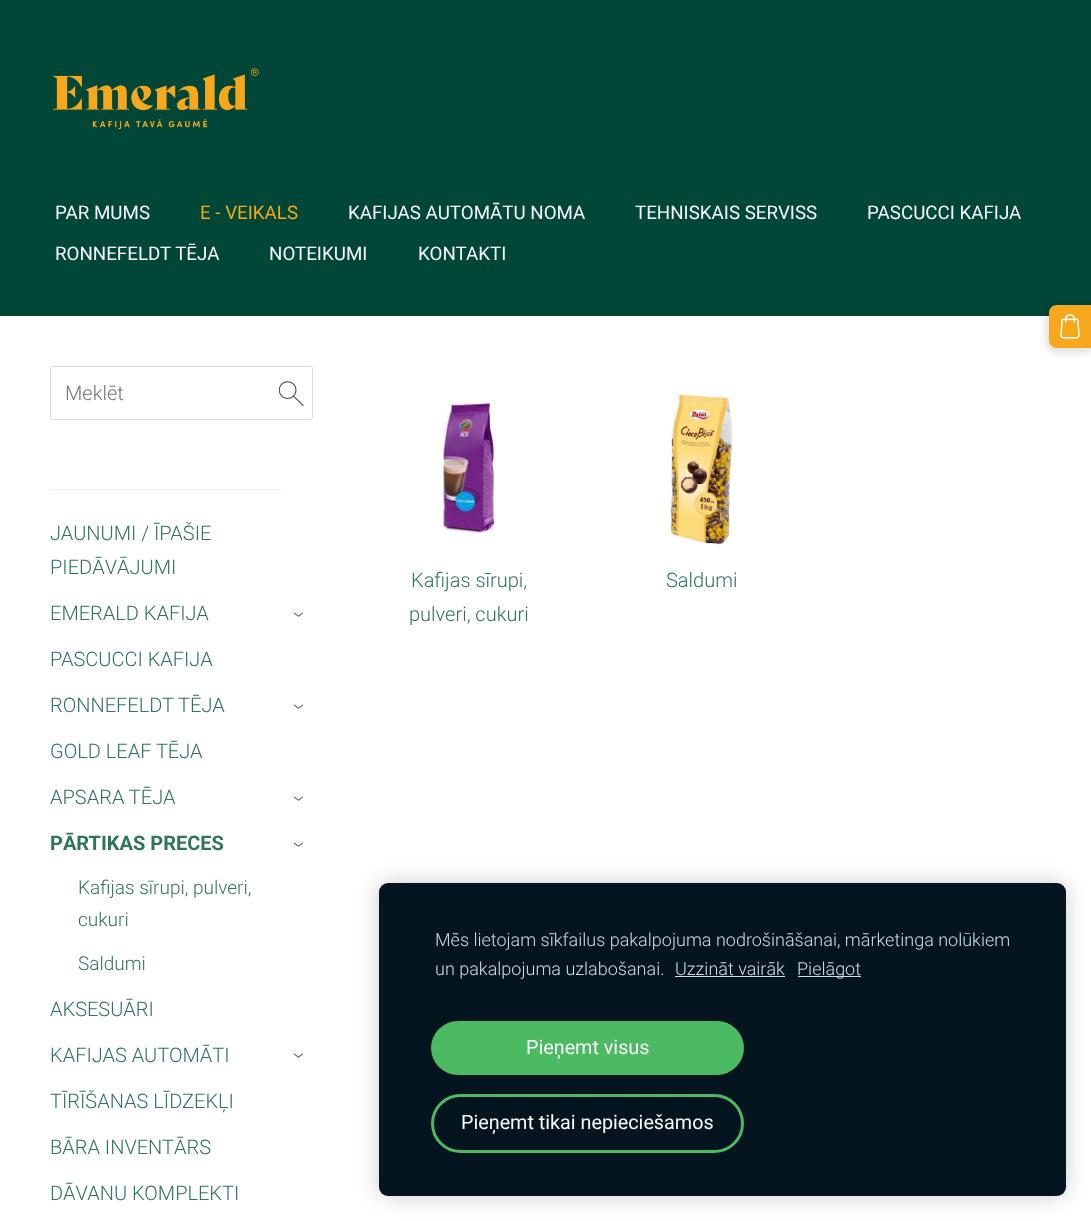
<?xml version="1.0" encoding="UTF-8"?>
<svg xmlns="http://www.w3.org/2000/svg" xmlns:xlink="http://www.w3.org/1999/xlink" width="1091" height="1221">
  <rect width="100%" height="100%" fill="#ffffff" />
  <rect width="1091" height="315" fill="#004738" />
  <rect y="315" width="1049" height="1" fill="#193f2f" />
  <image x="52" y="68" width="207" height="62" xlink:href="image1.png" />
  <rect x="1045" y="304" width="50" height="50" rx="11" fill="#000000" fill-opacity="0.1" filter="blur(3px)" />
  <path d="M 1057 305 h 34 v 43 h -34 c -4.5 0 -8 -3.5 -8 -8 v -27 c 0 -4.5 3.5 -8 8 -8 z" fill="#f6a71b" />
  <image x="1060" y="314" width="20" height="25" xlink:href="image2.png" />
  <rect x="50.5" y="366.5" width="262" height="53" rx="2" fill="none" stroke="#dddddd" />
  <image x="279" y="381" width="25" height="25" xlink:href="image3.png" />
  <rect x="50" y="489" width="231" height="1" fill="#eeeeee" />
  <image x="440" y="402" width="55" height="132" xlink:href="image4.png" />
  <image x="668" y="393" width="66" height="152" xlink:href="image5.png" />
  <rect x="379" y="883" width="687" height="313" rx="9" fill="#000000" fill-opacity="0.2" filter="blur(10.5px)" />
  <rect x="379" y="883" width="687" height="313" rx="9" fill="#04151f" />
  <rect x="675" y="976" width="110" height="1" fill="#d2dce6" />
  <rect x="798" y="976" width="63" height="1" fill="#d2dce6" />
  <rect x="431" y="1021" width="313" height="54" rx="27" fill="#4cb963" />
  <rect x="432.5" y="1095.5" width="310" height="56" rx="28" fill="none" stroke="#4cb963" stroke-width="3" />
  <text x="55" y="219" style="font-family: Roboto; font-size: 18.75px; fill: #fafafa">PAR MUMS</text>
  <text x="200" y="219" style="font-family: Roboto; font-size: 18.75px; fill: #f6a71c">E - VEIKALS</text>
  <text x="348" y="219" style="font-family: Roboto; font-size: 18.75px; fill: #fafafa">KAFIJAS AUTOMĀTU NOMA</text>
  <text x="635" y="219" style="font-family: Roboto; font-size: 18.75px; fill: #fafafa">TEHNISKAIS SERVISS</text>
  <text x="867" y="219" style="font-family: Roboto; font-size: 18.75px; fill: #fafafa">PASCUCCI KAFIJA</text>
  <text x="55" y="260" style="font-family: Roboto; font-size: 18.75px; fill: #fafafa">RONNEFELDT TĒJA</text>
  <text x="269" y="260" style="font-family: Roboto; font-size: 18.75px; fill: #fafafa">NOTEIKUMI</text>
  <text x="418" y="260" style="font-family: Roboto; font-size: 18.75px; fill: #fafafa">KONTAKTI</text>
  <text x="65" y="400" style="font-family: Roboto; font-size: 20px; font-weight: 300; fill: #757575">Meklēt</text>
  <text x="50" y="540" style="font-family: Roboto; font-size: 20px; font-weight: 300; fill: #2f7558">JAUNUMI / ĪPAŠIE</text>
  <text x="50" y="574" style="font-family: Roboto; font-size: 20px; font-weight: 300; fill: #2f7558">PIEDĀVĀJUMI</text>
  <text x="50" y="620" style="font-family: Roboto; font-size: 20px; font-weight: 300; fill: #2f7558">EMERALD KAFIJA</text>
  <text x="292" y="611" transform="rotate(90 292 611)" style="font-family: Roboto; font-size: 24px; font-weight: 300; fill: #666666">›</text>
  <text x="50" y="666" style="font-family: Roboto; font-size: 20px; font-weight: 300; fill: #2f7558">PASCUCCI KAFIJA</text>
  <text x="50" y="712" style="font-family: Roboto; font-size: 20px; font-weight: 300; fill: #2f7558">RONNEFELDT TĒJA</text>
  <text x="292" y="703" transform="rotate(90 292 703)" style="font-family: Roboto; font-size: 24px; font-weight: 300; fill: #666666">›</text>
  <text x="50" y="758" style="font-family: Roboto; font-size: 20px; font-weight: 300; fill: #2f7558">GOLD LEAF TĒJA</text>
  <text x="50" y="804" style="font-family: Roboto; font-size: 20px; font-weight: 300; fill: #2f7558">APSARA TĒJA</text>
  <text x="292" y="795" transform="rotate(90 292 795)" style="font-family: Roboto; font-size: 24px; font-weight: 300; fill: #666666">›</text>
  <text x="50" y="850" style="font-family: Roboto; font-size: 20px; font-weight: bold; fill: #2f7558">PĀRTIKAS PRECES</text>
  <text x="292" y="841" transform="rotate(90 292 841)" style="font-family: Roboto; font-size: 24px; font-weight: 300; fill: #666666">›</text>
  <text x="78" y="894" style="font-family: Roboto; font-size: 19px; font-weight: 300; fill: #2f7558">Kafijas sīrupi, pulveri,</text>
  <text x="78" y="926" style="font-family: Roboto; font-size: 19px; font-weight: 300; fill: #2f7558">cukuri</text>
  <text x="78" y="970" style="font-family: Roboto; font-size: 19px; font-weight: 300; fill: #2f7558">Saldumi</text>
  <text x="50" y="1016" style="font-family: Roboto; font-size: 20px; font-weight: 300; fill: #2f7558">AKSESUĀRI</text>
  <text x="50" y="1062" style="font-family: Roboto; font-size: 20px; font-weight: 300; fill: #2f7558">KAFIJAS AUTOMĀTI</text>
  <text x="292" y="1052" transform="rotate(90 292 1052)" style="font-family: Roboto; font-size: 24px; font-weight: 300; fill: #666666">›</text>
  <text x="50" y="1108" style="font-family: Roboto; font-size: 20px; font-weight: 300; fill: #2f7558">TĪRĪŠANAS LĪDZEKĻI</text>
  <text x="50" y="1154" style="font-family: Roboto; font-size: 20px; font-weight: 300; fill: #2f7558">BĀRA INVENTĀRS</text>
  <text x="50" y="1200" style="font-family: Roboto; font-size: 20px; font-weight: 300; fill: #2f7558">DĀVANU KOMPLEKTI</text>
  <text x="411" y="587" style="font-family: Roboto; font-size: 20px; font-weight: 300; fill: #2f7558">Kafijas sīrupi,</text>
  <text x="409" y="621" style="font-family: Roboto; font-size: 20px; font-weight: 300; fill: #2f7558">pulveri, cukuri</text>
  <text x="666" y="587" style="font-family: Roboto; font-size: 20px; font-weight: 300; fill: #2f7558">Saldumi</text>
  <text x="435" y="946" style="font-family: Roboto; font-size: 18px; font-weight: 300; fill: #d2dce6">Mēs lietojam sīkfailus pakalpojuma nodrošināšanai, mārketinga nolūkiem</text>
  <text x="435" y="975" style="font-family: Roboto; font-size: 18px; font-weight: 300; fill: #d2dce6">un pakalpojuma uzlabošanai.</text>
  <text x="675" y="975" style="font-family: Roboto; font-size: 18px; font-weight: 300; fill: #d2dce6">Uzzināt vairāk</text>
  <text x="797" y="975" style="font-family: Roboto; font-size: 18px; font-weight: 300; fill: #d2dce6">Pielāgot</text>
  <text x="526" y="1054" style="font-family: Roboto; font-size: 19.75px; fill: #fafafa">Pieņemt visus</text>
  <text x="461" y="1129" style="font-family: Roboto; font-size: 19.75px; fill: #fafafa">Pieņemt tikai nepieciešamos</text>
</svg>
